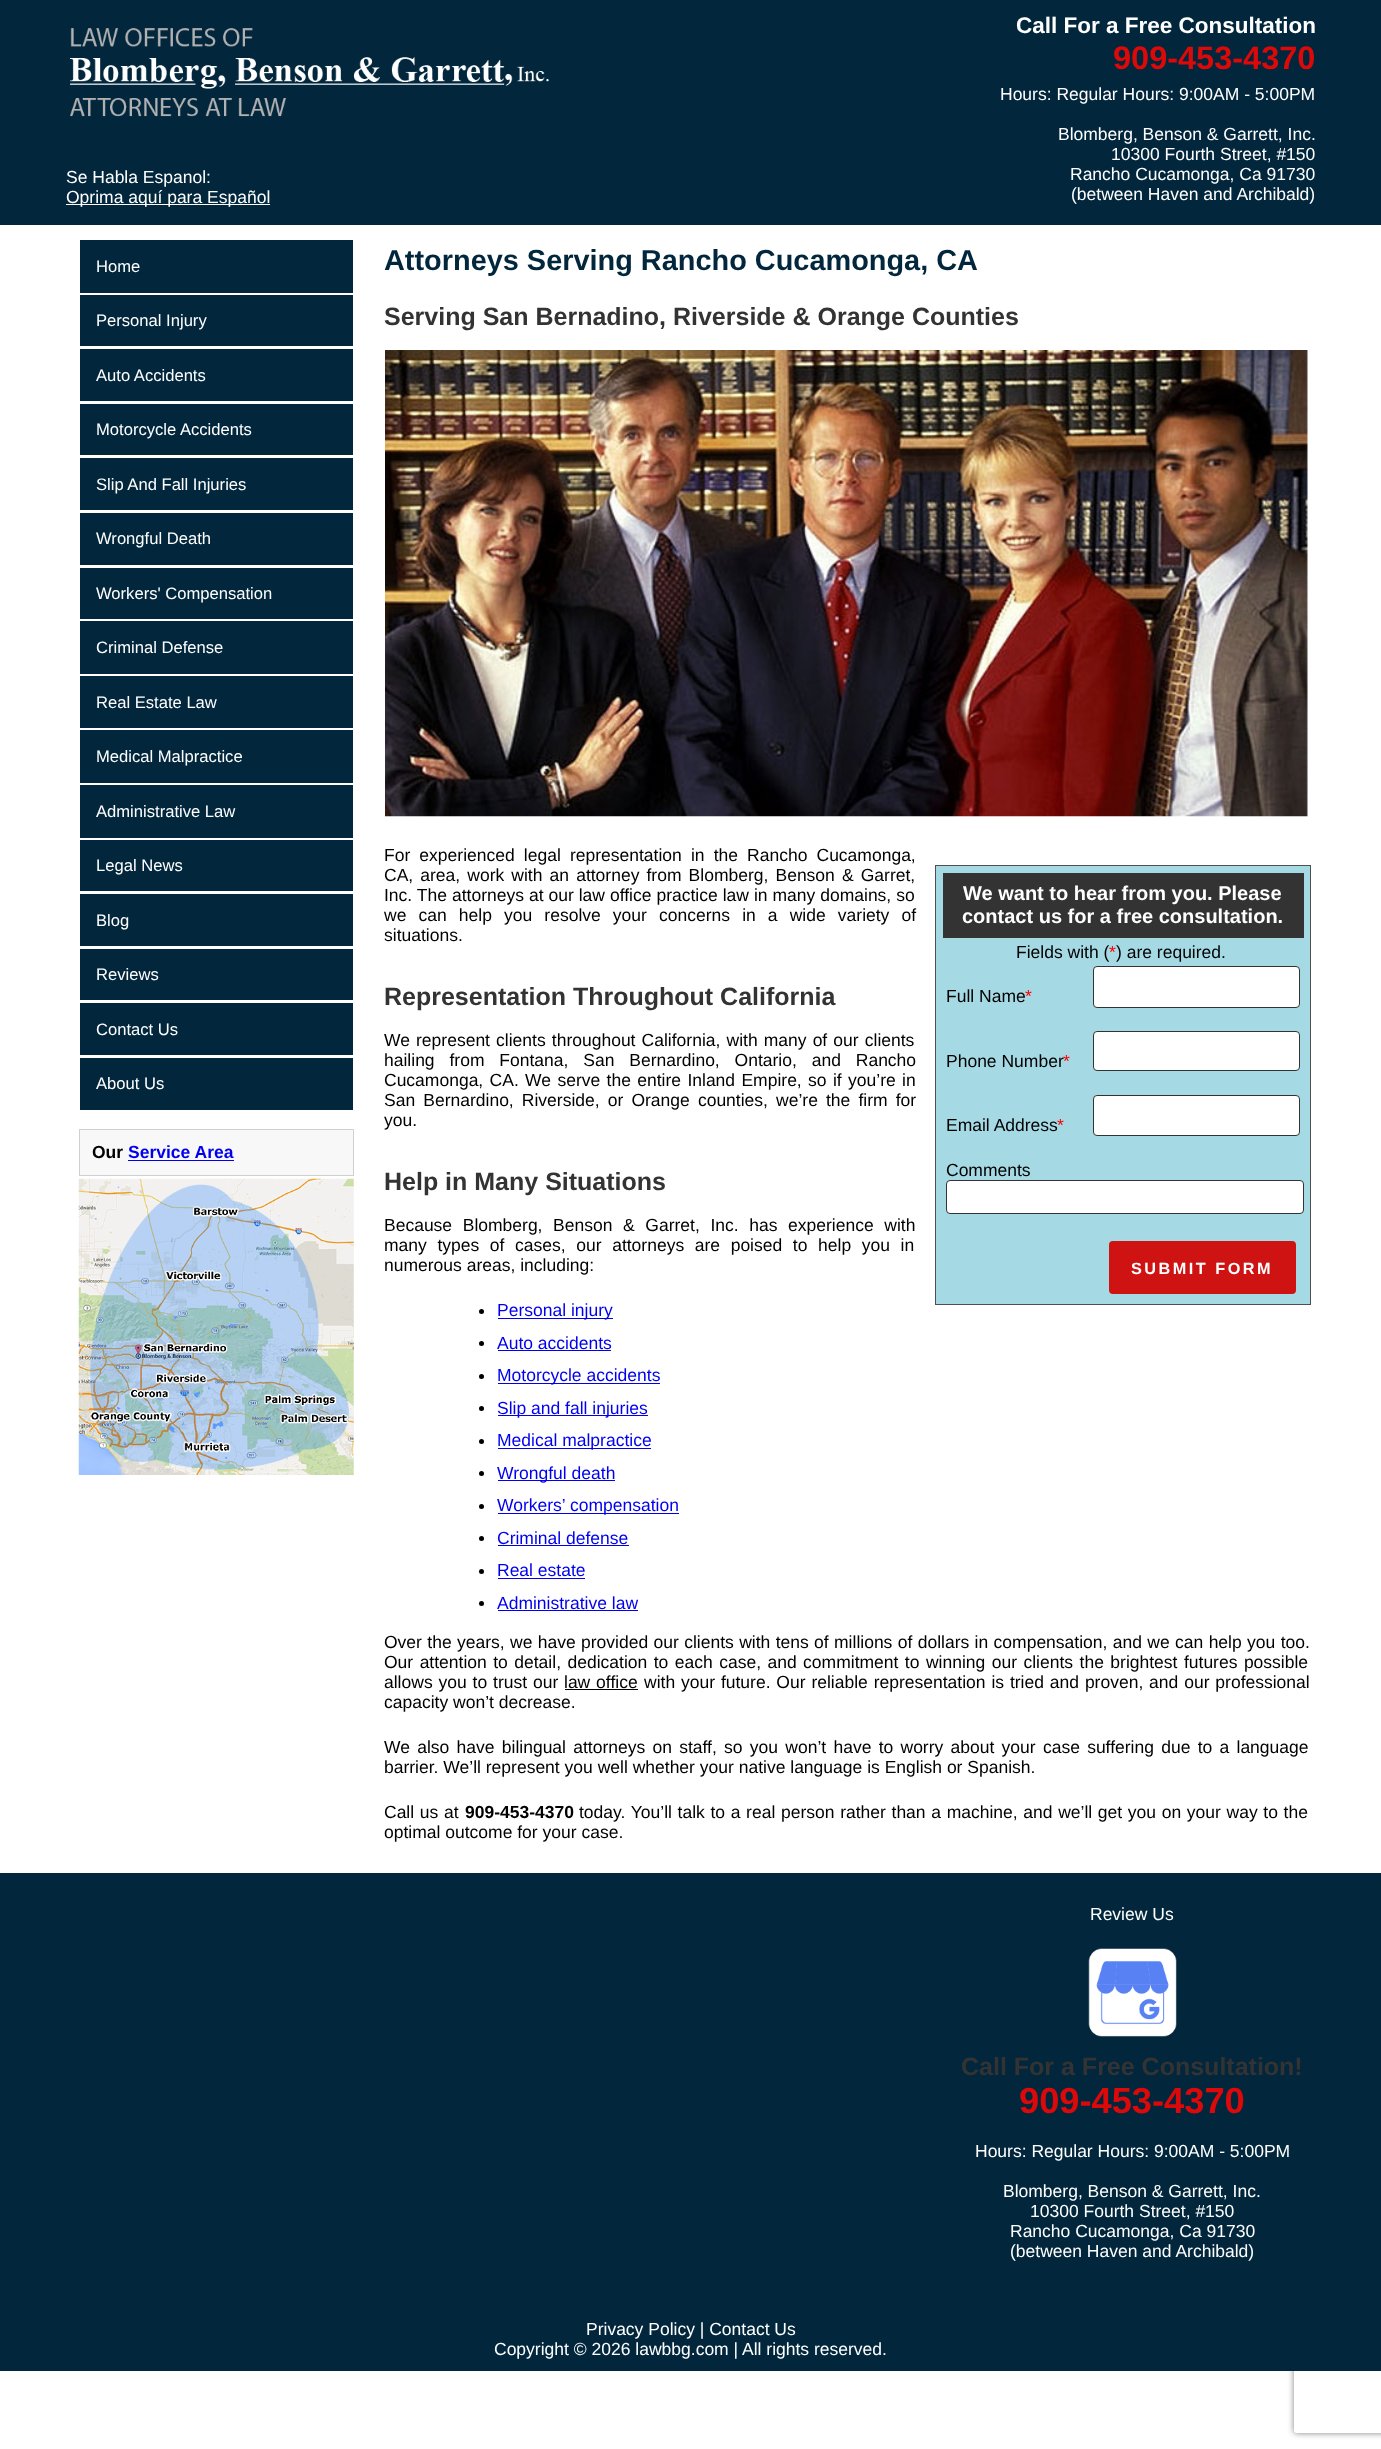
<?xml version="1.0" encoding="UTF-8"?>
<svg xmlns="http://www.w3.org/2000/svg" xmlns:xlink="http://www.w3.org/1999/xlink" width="1381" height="2449">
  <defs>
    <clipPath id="clip1"><path d="M 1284 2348 h 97 v 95 h -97 z m 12.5 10 h 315 c 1.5 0 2.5 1 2.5 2.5 v 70 c 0 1.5 -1 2.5 -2.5 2.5 h -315 c -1.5 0 -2.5 -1 -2.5 -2.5 v -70 c 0 -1.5 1 -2.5 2.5 -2.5 z" clip-rule="evenodd" /></clipPath>
  </defs>
  <rect width="100%" height="100%" fill="#ffffff" />
  <rect width="1381" height="225" fill="#02273d" />
  <image x="70" y="28" width="479" height="89" xlink:href="image1.png" />
  <rect x="66" y="204" width="204" height="1" fill="#ffffff" />
  <rect x="80" y="240" width="273" height="53" fill="#02273d" />
  <rect x="80" y="295" width="273" height="51" fill="#02273d" />
  <rect x="80" y="349" width="273" height="52" fill="#02273d" />
  <rect x="80" y="404" width="273" height="51" fill="#02273d" />
  <rect x="80" y="458" width="273" height="52" fill="#02273d" />
  <rect x="80" y="513" width="273" height="52" fill="#02273d" />
  <rect x="80" y="568" width="273" height="51" fill="#02273d" />
  <rect x="80" y="621" width="273" height="53" fill="#02273d" />
  <rect x="80" y="676" width="273" height="52" fill="#02273d" />
  <rect x="80" y="730" width="273" height="53" fill="#02273d" />
  <rect x="80" y="785" width="273" height="53" fill="#02273d" />
  <rect x="80" y="840" width="273" height="51" fill="#02273d" />
  <rect x="80" y="894" width="273" height="52" fill="#02273d" />
  <rect x="80" y="949" width="273" height="51" fill="#02273d" />
  <rect x="80" y="1003" width="273" height="52" fill="#02273d" />
  <rect x="80" y="1058" width="273" height="52" fill="#02273d" />
  <rect x="79.5" y="1129.5" width="274" height="46" fill="#f8f8f8" stroke="#d0d0d0" />
  <rect x="128" y="1160" width="106" height="1" fill="#0000ee" />
  <image x="78" y="1178" width="276" height="297" xlink:href="image2.png" />
  <image x="385" y="350" width="923" height="467" xlink:href="image3.png" />
  <rect x="935.5" y="865.5" width="375" height="439" fill="#a5d9e4" stroke="#4f4f4f" />
  <rect x="943" y="873" width="361" height="65" fill="#333333" />
  <rect x="1093.5" y="966.5" width="206" height="41" rx="3.5" fill="#ffffff" stroke="#333333" />
  <rect x="1093.5" y="1031.5" width="206" height="39" rx="3.5" fill="#ffffff" stroke="#333333" />
  <rect x="1093.5" y="1095.5" width="206" height="40" rx="3.5" fill="#ffffff" stroke="#333333" />
  <rect x="946.5" y="1180.5" width="357" height="33" rx="3.5" fill="#ffffff" stroke="#333333" />
  <rect x="1109" y="1241" width="187" height="53" rx="4" fill="#cf1313" />
  <circle cx="481.5" cy="1311.5" r="2.5" fill="#000000" />
  <rect x="498" y="1318" width="115" height="1" fill="#0000ee" />
  <circle cx="481.5" cy="1343.5" r="2.5" fill="#000000" />
  <rect x="498" y="1350" width="113" height="1" fill="#0000ee" />
  <circle cx="481.5" cy="1376.5" r="2.5" fill="#000000" />
  <rect x="498" y="1383" width="162" height="1" fill="#0000ee" />
  <circle cx="481.5" cy="1408.5" r="2.5" fill="#000000" />
  <rect x="498" y="1415" width="150" height="1" fill="#0000ee" />
  <circle cx="481.5" cy="1441.5" r="2.5" fill="#000000" />
  <rect x="498" y="1448" width="153" height="1" fill="#0000ee" />
  <circle cx="481.5" cy="1473.5" r="2.5" fill="#000000" />
  <rect x="498" y="1480" width="117" height="1" fill="#0000ee" />
  <circle cx="481.5" cy="1506.5" r="2.5" fill="#000000" />
  <rect x="498" y="1513" width="181" height="1" fill="#0000ee" />
  <circle cx="481.5" cy="1538.5" r="2.5" fill="#000000" />
  <rect x="498" y="1545" width="131" height="1" fill="#0000ee" />
  <circle cx="481.5" cy="1571.5" r="2.5" fill="#000000" />
  <rect x="498" y="1578" width="87" height="1" fill="#0000ee" />
  <circle cx="481.5" cy="1603.5" r="2.5" fill="#000000" />
  <rect x="498" y="1610" width="140" height="1" fill="#0000ee" />
  <rect x="565" y="1689" width="73" height="1" fill="#000000" />
  <g clip-path="url(#clip1)">
    <rect x="1294" y="2358" width="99" height="75" rx="2.5" fill="#808080" filter="blur(3px)" />
  </g>
  <rect y="1873" width="1381" height="498" fill="#02273d" />
  <image x="1088" y="1948" width="89" height="89" xlink:href="image4.png" />
  <text x="1016" y="33" style="font-family: Liberation Sans; font-size: 22.5px; font-weight: bold; fill: #ffffff">Call For a Free Consultation</text>
  <text x="1113" y="69" style="font-family: Liberation Sans; font-size: 32.5px; font-weight: bold; fill: #db0909">909-453-4370</text>
  <text x="1000" y="100" style="font-family: Liberation Sans; font-size: 17.5px; fill: #ffffff">Hours: Regular Hours: 9:00AM - 5:00PM</text>
  <text x="1058" y="140" style="font-family: Liberation Sans; font-size: 17.5px; fill: #ffffff">Blomberg, Benson &amp; Garrett, Inc.</text>
  <text x="1111" y="160" style="font-family: Liberation Sans; font-size: 17.5px; fill: #ffffff">10300 Fourth Street, #150</text>
  <text x="1070" y="180" style="font-family: Liberation Sans; font-size: 17.5px; fill: #ffffff">Rancho Cucamonga, Ca 91730</text>
  <text x="1071" y="200" style="font-family: Liberation Sans; font-size: 17.5px; fill: #ffffff">(between Haven and Archibald)</text>
  <text x="66" y="183" style="font-family: Liberation Sans; font-size: 17.5px; fill: #ffffff">Se Habla Espanol:</text>
  <text x="66" y="203" style="font-family: Liberation Sans; font-size: 17.5px; fill: #ffffff">Oprima aquí para Español</text>
  <text x="96" y="272" style="font-family: Liberation Sans; font-size: 16.6px; fill: #ffffff">Home</text>
  <text x="96" y="326" style="font-family: Liberation Sans; font-size: 16.6px; fill: #ffffff">Personal Injury</text>
  <text x="96" y="381" style="font-family: Liberation Sans; font-size: 16.6px; fill: #ffffff">Auto Accidents</text>
  <text x="96" y="435" style="font-family: Liberation Sans; font-size: 16.6px; fill: #ffffff">Motorcycle Accidents</text>
  <text x="96" y="490" style="font-family: Liberation Sans; font-size: 16.6px; fill: #ffffff">Slip And Fall Injuries</text>
  <text x="96" y="544" style="font-family: Liberation Sans; font-size: 16.6px; fill: #ffffff">Wrongful Death</text>
  <text x="96" y="599" style="font-family: Liberation Sans; font-size: 16.6px; fill: #ffffff">Workers' Compensation</text>
  <text x="96" y="653" style="font-family: Liberation Sans; font-size: 16.6px; fill: #ffffff">Criminal Defense</text>
  <text x="96" y="708" style="font-family: Liberation Sans; font-size: 16.6px; fill: #ffffff">Real Estate Law</text>
  <text x="96" y="762" style="font-family: Liberation Sans; font-size: 16.6px; fill: #ffffff">Medical Malpractice</text>
  <text x="96" y="817" style="font-family: Liberation Sans; font-size: 16.6px; fill: #ffffff">Administrative Law</text>
  <text x="96" y="871" style="font-family: Liberation Sans; font-size: 16.6px; fill: #ffffff">Legal News</text>
  <text x="96" y="926" style="font-family: Liberation Sans; font-size: 16.6px; fill: #ffffff">Blog</text>
  <text x="96" y="980" style="font-family: Liberation Sans; font-size: 16.6px; fill: #ffffff">Reviews</text>
  <text x="96" y="1035" style="font-family: Liberation Sans; font-size: 16.6px; fill: #ffffff">Contact Us</text>
  <text x="96" y="1089" style="font-family: Liberation Sans; font-size: 16.6px; fill: #ffffff">About Us</text>
  <text x="92" y="1158" style="font-family: Liberation Sans; font-size: 17.5px; font-weight: bold; fill: #000000">Our</text>
  <text x="128" y="1158" style="font-family: Liberation Sans; font-size: 17.5px; font-weight: bold; fill: #0000ee">Service Area</text>
  <text x="384" y="270" style="font-family: Liberation Sans; font-size: 28.9px; font-weight: bold; fill: #02273d">Attorneys Serving Rancho Cucamonga, CA</text>
  <text x="384" y="325" style="font-family: Liberation Sans; font-size: 25px; font-weight: bold; fill: #333333">Serving San Bernadino, Riverside &amp; Orange Counties</text>
  <text x="384" y="861" word-spacing="4.25" style="font-family: Liberation Sans; font-size: 17.5px; fill: #000000">For experienced legal representation in the Rancho Cucamonga,</text>
  <text x="384" y="881" word-spacing="2.25" style="font-family: Liberation Sans; font-size: 17.5px; fill: #000000">CA, area, work with an attorney from Blomberg, Benson &amp; Garret,</text>
  <text x="384" y="901" word-spacing="0.1" style="font-family: Liberation Sans; font-size: 17.5px; fill: #000000">Inc. The attorneys at our law office practice law in many domains, so</text>
  <text x="384" y="921" word-spacing="7.25" style="font-family: Liberation Sans; font-size: 17.5px; fill: #000000">we can help you resolve your concerns in a wide variety of</text>
  <text x="384" y="941" style="font-family: Liberation Sans; font-size: 17.5px; fill: #000000">situations.</text>
  <text x="963" y="900" style="font-family: Liberation Sans; font-size: 20px; font-weight: bold; fill: #ffffff">We want to hear from you. Please</text>
  <text x="962" y="923" style="font-family: Liberation Sans; font-size: 20px; font-weight: bold; fill: #ffffff">contact us for a free consultation.</text>
  <text x="1016" y="958" style="font-family: Liberation Sans; font-size: 17.5px; fill: #000000">Fields with (</text>
  <text x="1109" y="958" style="font-family: Liberation Sans; font-size: 17.5px; fill: #ff0000">*</text>
  <text x="1116" y="958" style="font-family: Liberation Sans; font-size: 17.5px; fill: #000000">) are required.</text>
  <text x="946" y="1002" style="font-family: Liberation Sans; font-size: 17.5px; fill: #000000">Full Name</text>
  <text x="1025" y="1002" style="font-family: Liberation Sans; font-size: 17.5px; fill: #ff0000">*</text>
  <text x="946" y="1067" style="font-family: Liberation Sans; font-size: 17.5px; fill: #000000">Phone Number</text>
  <text x="1063" y="1067" style="font-family: Liberation Sans; font-size: 17.5px; fill: #ff0000">*</text>
  <text x="946" y="1131" style="font-family: Liberation Sans; font-size: 17.5px; fill: #000000">Email Address</text>
  <text x="1057" y="1131" style="font-family: Liberation Sans; font-size: 17.5px; fill: #ff0000">*</text>
  <text x="946" y="1176" style="font-family: Liberation Sans; font-size: 17.5px; fill: #000000">Comments</text>
  <text x="1131" y="1274" style="font-family: Liberation Sans; font-size: 16.25px; font-weight: bold; letter-spacing: 2.5px; fill: #ffffff">SUBMIT FORM</text>
  <text x="384" y="1005" style="font-family: Liberation Sans; font-size: 25px; font-weight: bold; fill: #333333">Representation Throughout California</text>
  <text x="384" y="1046" word-spacing="1.25" style="font-family: Liberation Sans; font-size: 17.5px; fill: #000000">We represent clients throughout California, with many of our clients</text>
  <text x="384" y="1066" word-spacing="10" style="font-family: Liberation Sans; font-size: 17.5px; fill: #000000">hailing from Fontana, San Bernardino, Ontario, and Rancho</text>
  <text x="384" y="1086" word-spacing="1.5" style="font-family: Liberation Sans; font-size: 17.5px; fill: #000000">Cucamonga, CA. We serve the entire Inland Empire, so if you’re in</text>
  <text x="384" y="1106" word-spacing="3.25" style="font-family: Liberation Sans; font-size: 17.5px; fill: #000000">San Bernardino, Riverside, or Orange counties, we’re the firm for</text>
  <text x="384" y="1126" style="font-family: Liberation Sans; font-size: 17.5px; fill: #000000">you.</text>
  <text x="384" y="1190" style="font-family: Liberation Sans; font-size: 25px; font-weight: bold; fill: #333333">Help in Many Situations</text>
  <text x="384" y="1231" word-spacing="5.75" style="font-family: Liberation Sans; font-size: 17.5px; fill: #000000">Because Blomberg, Benson &amp; Garret, Inc. has experience with</text>
  <text x="384" y="1251" word-spacing="5.75" style="font-family: Liberation Sans; font-size: 17.5px; fill: #000000">many types of cases, our attorneys are poised to help you in</text>
  <text x="384" y="1271" style="font-family: Liberation Sans; font-size: 17.5px; fill: #000000">numerous areas, including:</text>
  <text x="497" y="1316" style="font-family: Liberation Sans; font-size: 17.5px; fill: #0000ee">Personal injury</text>
  <text x="497" y="1349" style="font-family: Liberation Sans; font-size: 17.5px; fill: #0000ee">Auto accidents</text>
  <text x="497" y="1381" style="font-family: Liberation Sans; font-size: 17.5px; fill: #0000ee">Motorcycle accidents</text>
  <text x="497" y="1414" style="font-family: Liberation Sans; font-size: 17.5px; fill: #0000ee">Slip and fall injuries</text>
  <text x="497" y="1446" style="font-family: Liberation Sans; font-size: 17.5px; fill: #0000ee">Medical malpractice</text>
  <text x="497" y="1479" style="font-family: Liberation Sans; font-size: 17.5px; fill: #0000ee">Wrongful death</text>
  <text x="497" y="1511" style="font-family: Liberation Sans; font-size: 17.5px; fill: #0000ee">Workers’ compensation</text>
  <text x="497" y="1544" style="font-family: Liberation Sans; font-size: 17.5px; fill: #0000ee">Criminal defense</text>
  <text x="497" y="1576" style="font-family: Liberation Sans; font-size: 17.5px; fill: #0000ee">Real estate</text>
  <text x="497" y="1609" style="font-family: Liberation Sans; font-size: 17.5px; fill: #0000ee">Administrative law</text>
  <text x="384" y="1648" word-spacing="0.5" style="font-family: Liberation Sans; font-size: 17.5px; fill: #000000">Over the years, we have provided our clients with tens of millions of dollars in compensation, and we can help you too.</text>
  <text x="384" y="1668" word-spacing="1.6" style="font-family: Liberation Sans; font-size: 17.5px; fill: #000000">Our attention to detail, dedication to each case, and commitment to winning our clients the brightest futures possible</text>
  <text x="384" y="1688" word-spacing="1" style="font-family: Liberation Sans; font-size: 17.5px; fill: #000000">allows you to trust our</text>
  <text x="564" y="1688" word-spacing="1" style="font-family: Liberation Sans; font-size: 17.5px; fill: #000000">law office</text>
  <text x="644" y="1688" word-spacing="1" style="font-family: Liberation Sans; font-size: 17.5px; fill: #000000">with your future. Our reliable representation is tried and proven, and our professional</text>
  <text x="384" y="1708" style="font-family: Liberation Sans; font-size: 17.5px; fill: #000000">capacity won’t decrease.</text>
  <text x="384" y="1753" word-spacing="2.4" style="font-family: Liberation Sans; font-size: 17.5px; fill: #000000">We also have bilingual attorneys on staff, so you won’t have to worry about your case suffering due to a language</text>
  <text x="384" y="1773" style="font-family: Liberation Sans; font-size: 17.5px; fill: #000000">barrier. We’ll represent you well whether your native language is English or Spanish.</text>
  <text x="384" y="1818" word-spacing="0.8" style="font-family: Liberation Sans; font-size: 17.5px; fill: #000000">Call us at</text>
  <text x="465" y="1818" style="font-family: Liberation Sans; font-size: 17.5px; font-weight: bold; fill: #000000">909-453-4370</text>
  <text x="579" y="1818" word-spacing="0.8" style="font-family: Liberation Sans; font-size: 17.5px; fill: #000000">today. You’ll talk to a real person rather than a machine, and we’ll get you on your way to the</text>
  <text x="384" y="1838" style="font-family: Liberation Sans; font-size: 17.5px; fill: #000000">optimal outcome for your case.</text>
  <text x="1090" y="1920" style="font-family: Liberation Sans; font-size: 17.5px; fill: #ffffff">Review Us</text>
  <text x="961" y="2075" style="font-family: Liberation Sans; font-size: 25px; font-weight: bold; fill: #333333">Call For a Free Consultation!</text>
  <text x="1019" y="2113" style="font-family: Liberation Sans; font-size: 36.25px; font-weight: bold; fill: #db0909">909-453-4370</text>
  <text x="975" y="2157" style="font-family: Liberation Sans; font-size: 17.5px; fill: #ffffff">Hours: Regular Hours: 9:00AM - 5:00PM</text>
  <text x="1003" y="2197" style="font-family: Liberation Sans; font-size: 17.5px; fill: #ffffff">Blomberg, Benson &amp; Garrett, Inc.</text>
  <text x="1030" y="2217" style="font-family: Liberation Sans; font-size: 17.5px; fill: #ffffff">10300 Fourth Street, #150</text>
  <text x="1010" y="2237" style="font-family: Liberation Sans; font-size: 17.5px; fill: #ffffff">Rancho Cucamonga, Ca 91730</text>
  <text x="1010" y="2257" style="font-family: Liberation Sans; font-size: 17.5px; fill: #ffffff">(between Haven and Archibald)</text>
  <text x="586" y="2335" style="font-family: Liberation Sans; font-size: 17.5px; fill: #ffffff">Privacy Policy | Contact Us</text>
  <text x="494" y="2355" style="font-family: Liberation Sans; font-size: 17.5px; fill: #ffffff">Copyright © 2026 lawbbg.com | All rights reserved.</text>
</svg>
